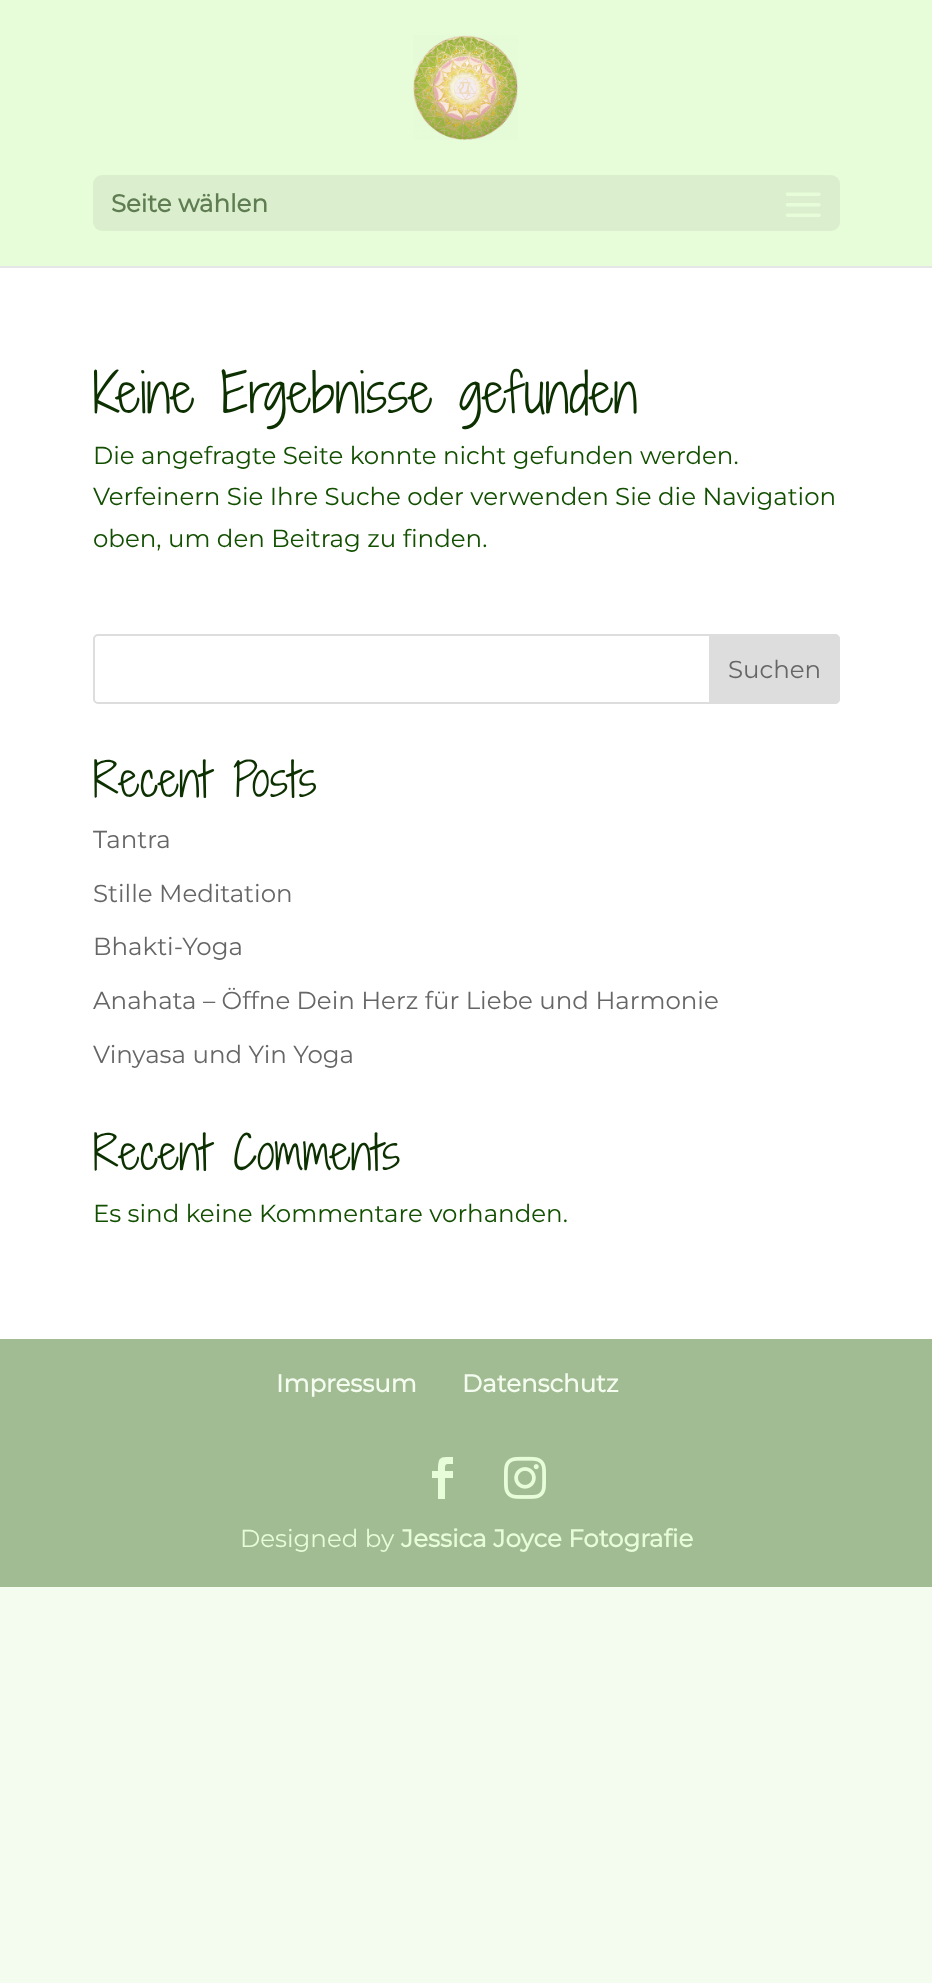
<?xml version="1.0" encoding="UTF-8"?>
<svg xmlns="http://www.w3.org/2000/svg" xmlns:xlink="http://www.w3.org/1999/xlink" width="932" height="1983">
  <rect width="100%" height="100%" fill="#f4fcef" />
  <path d="M 0 266 v 2 h 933 v -266 v 264 z" fill="#e6e6e6" />
  <rect width="932" height="266" fill="#e7fcd9" />
  <image x="413" y="35" width="105" height="105" xlink:href="image1.png" />
  <rect x="93" y="175" width="747" height="56" rx="9" fill="#dbefce" />
  <image x="786" y="192" width="35" height="25" xlink:href="image2.png" />
  <rect y="268" width="932" height="1071" fill="#ffffff" />
  <rect x="94" y="635" width="745" height="68" rx="4" fill="none" stroke="#dddddd" stroke-width="2" />
  <path d="M 710 635 h 125 c 2 0 4 2 4 4 v 60 c 0 2 -2 4 -4 4 h -125 z" fill="#dddddd" stroke="#dddddd" stroke-width="2" />
  <rect y="1339" width="932" height="248" fill="#a1bb93" />
  <path d="M 438 1499 h 7 v -21 h 8 v -7 h -8 c 0 -8 0 -7 8 -7 v -7 c -13 0 -15 -1 -15 14 h -6 v 7 h 6 z" fill="#e7fcd9" />
  <image x="504" y="1456" width="42" height="43" xlink:href="image3.png" />
  <text x="111" y="212" style="font-family: Montserrat; font-size: 24.5px; font-weight: bold; fill: #5f7c52">Seite wählen</text>
  <text x="93" y="413" style="font-family: Shadows Into Light Two; font-size: 52.5px; font-weight: 300; fill: #0c3000">Keine Ergebnisse gefunden</text>
  <text x="93" y="464" style="font-family: Montserrat; font-size: 24.5px; fill: #124f00">Die angefragte Seite konnte nicht gefunden werden.</text>
  <text x="93" y="505" style="font-family: Montserrat; font-size: 24.5px; fill: #124f00">Verfeinern Sie Ihre Suche oder verwenden Sie die Navigation</text>
  <text x="93" y="547" style="font-family: Montserrat; font-size: 24.5px; fill: #124f00">oben, um den Beitrag zu finden.</text>
  <text x="728" y="678" style="font-family: Montserrat; font-size: 24.5px; fill: #666666">Suchen</text>
  <text x="93" y="797" style="font-family: Shadows Into Light Two; font-size: 45.5px; font-weight: 300; fill: #0c3000">Recent Posts</text>
  <text x="93" y="848" style="font-family: Montserrat; font-size: 24.5px; fill: #666666">Tantra</text>
  <text x="93" y="902" style="font-family: Montserrat; font-size: 24.5px; fill: #666666">Stille Meditation</text>
  <text x="93" y="955" style="font-family: Montserrat; font-size: 24.5px; fill: #666666">Bhakti-Yoga</text>
  <text x="93" y="1009" style="font-family: Montserrat; font-size: 24.5px; fill: #666666">Anahata – Öffne Dein Herz für Liebe und Harmonie</text>
  <text x="93" y="1063" style="font-family: Montserrat; font-size: 24.5px; fill: #666666">Vinyasa und Yin Yoga</text>
  <text x="93" y="1170" style="font-family: Shadows Into Light Two; font-size: 45.5px; font-weight: 300; fill: #0c3000">Recent Comments</text>
  <text x="93" y="1222" style="font-family: Montserrat; font-size: 24.5px; fill: #124f00">Es sind keine Kommentare vorhanden.</text>
  <text x="276" y="1392" style="font-family: Montserrat; font-size: 24.5px; font-weight: bold; fill: #f4fcef">Impressum</text>
  <text x="462" y="1392" style="font-family: Montserrat; font-size: 24.5px; font-weight: bold; fill: #f4fcef">Datenschutz</text>
  <text x="240" y="1547" style="font-family: Montserrat; font-size: 24.5px; fill: #e7fcd9">Designed by</text>
  <text x="401" y="1547" style="font-family: Montserrat; font-size: 24.5px; font-weight: bold; fill: #e7fcd9">Jessica Joyce Fotografie</text>
</svg>
